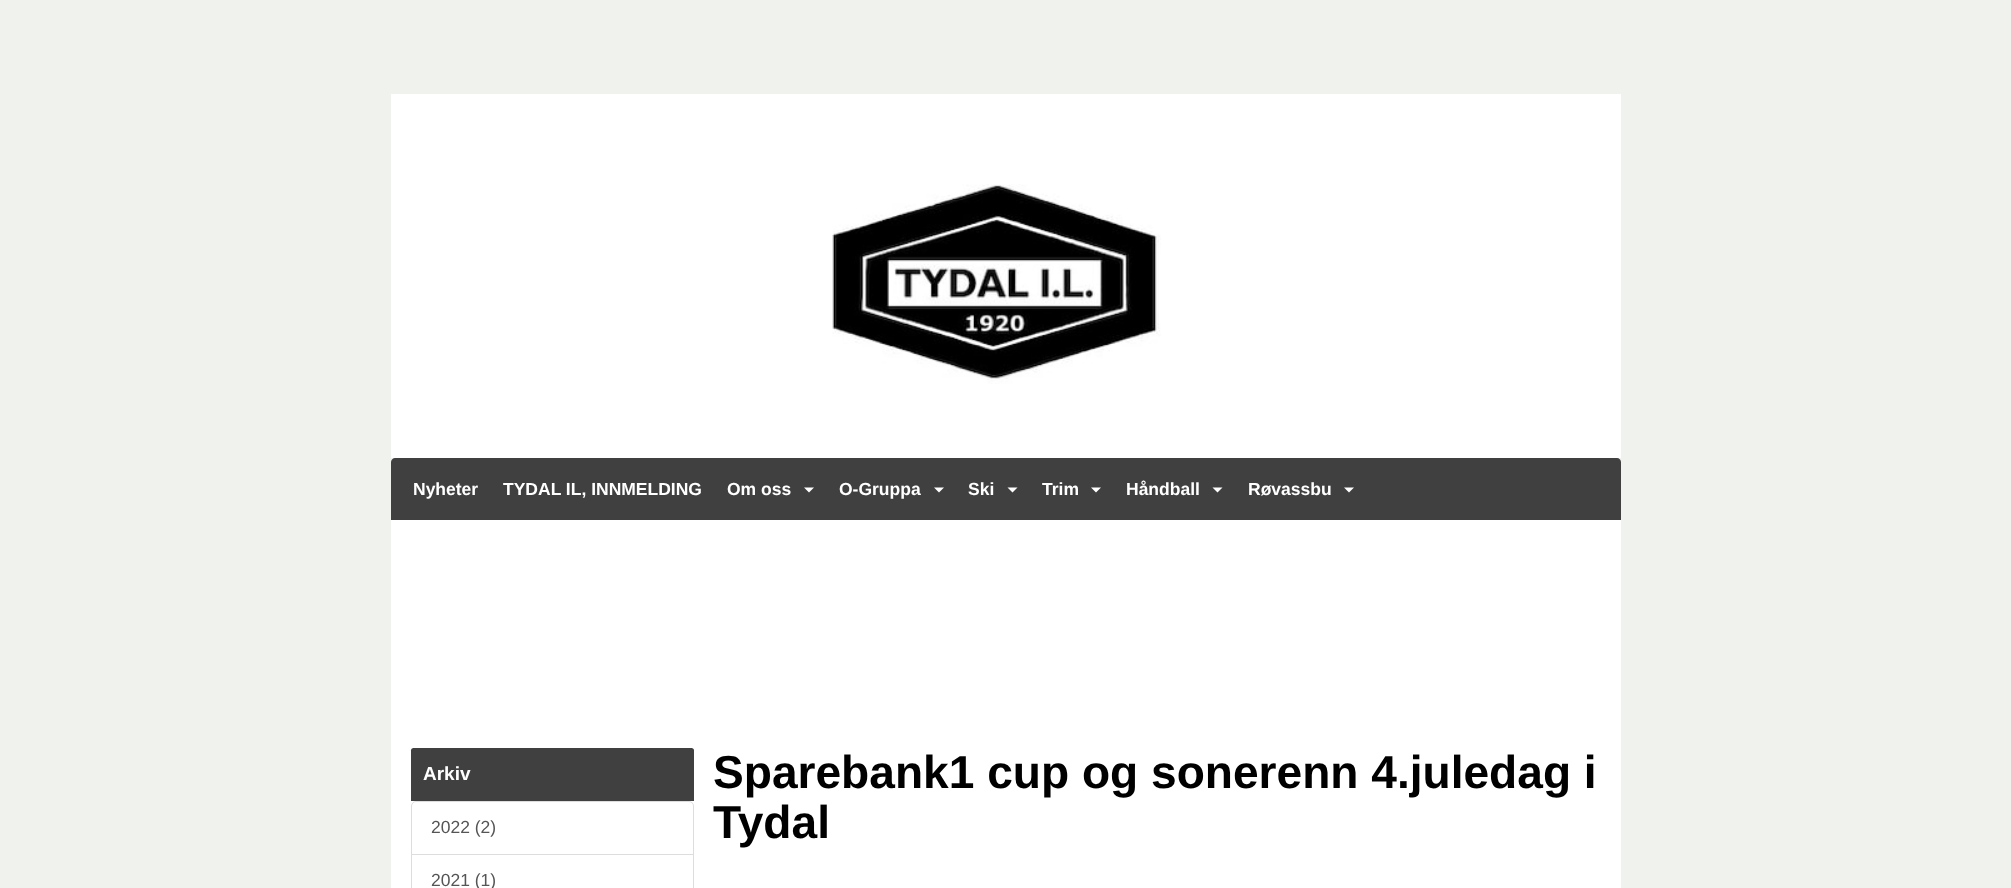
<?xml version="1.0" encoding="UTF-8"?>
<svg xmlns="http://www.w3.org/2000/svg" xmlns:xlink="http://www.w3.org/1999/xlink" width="2011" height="888">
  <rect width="100%" height="100%" fill="#f0f2ed" />
  <rect x="391" y="94" width="1230" height="364" fill="#ffffff" />
  <image x="832" y="184" width="329" height="200" xlink:href="image1.png" />
  <path d="M 395 458 h 1222 c 2 0 4 2 4 4 v 58 h -1230 v -58 c 0 -2 2 -4 4 -4 z" fill="#404040" />
  <path d="M 804 487.5 h 10 l -5 5 z" fill="#ffffff" />
  <path d="M 934 487.5 h 10 l -5 5 z" fill="#ffffff" />
  <path d="M 1007.5 487.5 h 10 l -5 5 z" fill="#ffffff" />
  <path d="M 1091 487.5 h 10 l -5 5 z" fill="#ffffff" />
  <path d="M 1212.5 487.5 h 10 l -5 5 z" fill="#ffffff" />
  <path d="M 1344 487.5 h 10 l -5 5 z" fill="#ffffff" />
  <rect x="391" y="520" width="1230" height="368" fill="#ffffff" />
  <path d="M 413.5 748 h 278 c 1.5 0 2.5 1 2.5 2.5 v 50.5 h -283 v -50.5 c 0 -1.5 1 -2.5 2.5 -2.5 z" fill="#404040" />
  <path d="M 416 801.5 h 273 c 2.5 0 4.5 2 4.5 4.5 v 48.5 h -282 v -48.5 c 0 -2.5 2 -4.5 4.5 -4.5 z" fill="none" stroke="#dddddd" />
  <rect x="411.5" y="854.5" width="282" height="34" fill="none" stroke="#dddddd" />
  <text x="413" y="495" style="font-family: Liberation Sans; font-size: 17.5px; font-weight: bold; fill: #ffffff">Nyheter</text>
  <text x="503" y="495" style="font-family: Liberation Sans; font-size: 17.5px; font-weight: bold; fill: #ffffff">TYDAL IL, INNMELDING</text>
  <text x="727" y="495" style="font-family: Liberation Sans; font-size: 17.5px; font-weight: bold; fill: #ffffff">Om oss</text>
  <text x="839" y="495" style="font-family: Liberation Sans; font-size: 17.5px; font-weight: bold; fill: #ffffff">O-Gruppa</text>
  <text x="968" y="495" style="font-family: Liberation Sans; font-size: 17.5px; font-weight: bold; fill: #ffffff">Ski</text>
  <text x="1042" y="495" style="font-family: Liberation Sans; font-size: 17.5px; font-weight: bold; fill: #ffffff">Trim</text>
  <text x="1126" y="495" style="font-family: Liberation Sans; font-size: 17.5px; font-weight: bold; fill: #ffffff">Håndball</text>
  <text x="1248" y="495" style="font-family: Liberation Sans; font-size: 17.5px; font-weight: bold; fill: #ffffff">Røvassbu</text>
  <text x="423" y="780" style="font-family: Liberation Sans; font-size: 19px; font-weight: bold; fill: #ffffff">Arkiv</text>
  <text x="431" y="833" style="font-family: Liberation Sans; font-size: 17.5px; fill: #555555">2022 (2)</text>
  <text x="431" y="886" style="font-family: Liberation Sans; font-size: 17.5px; fill: #555555">2021 (1)</text>
  <text x="713" y="788" style="font-family: Liberation Sans; font-size: 46.1px; font-weight: bold; fill: #000000">Sparebank1 cup og sonerenn 4.juledag i</text>
  <text x="713" y="838" style="font-family: Liberation Sans; font-size: 46.1px; font-weight: bold; fill: #000000">Tydal</text>
</svg>
